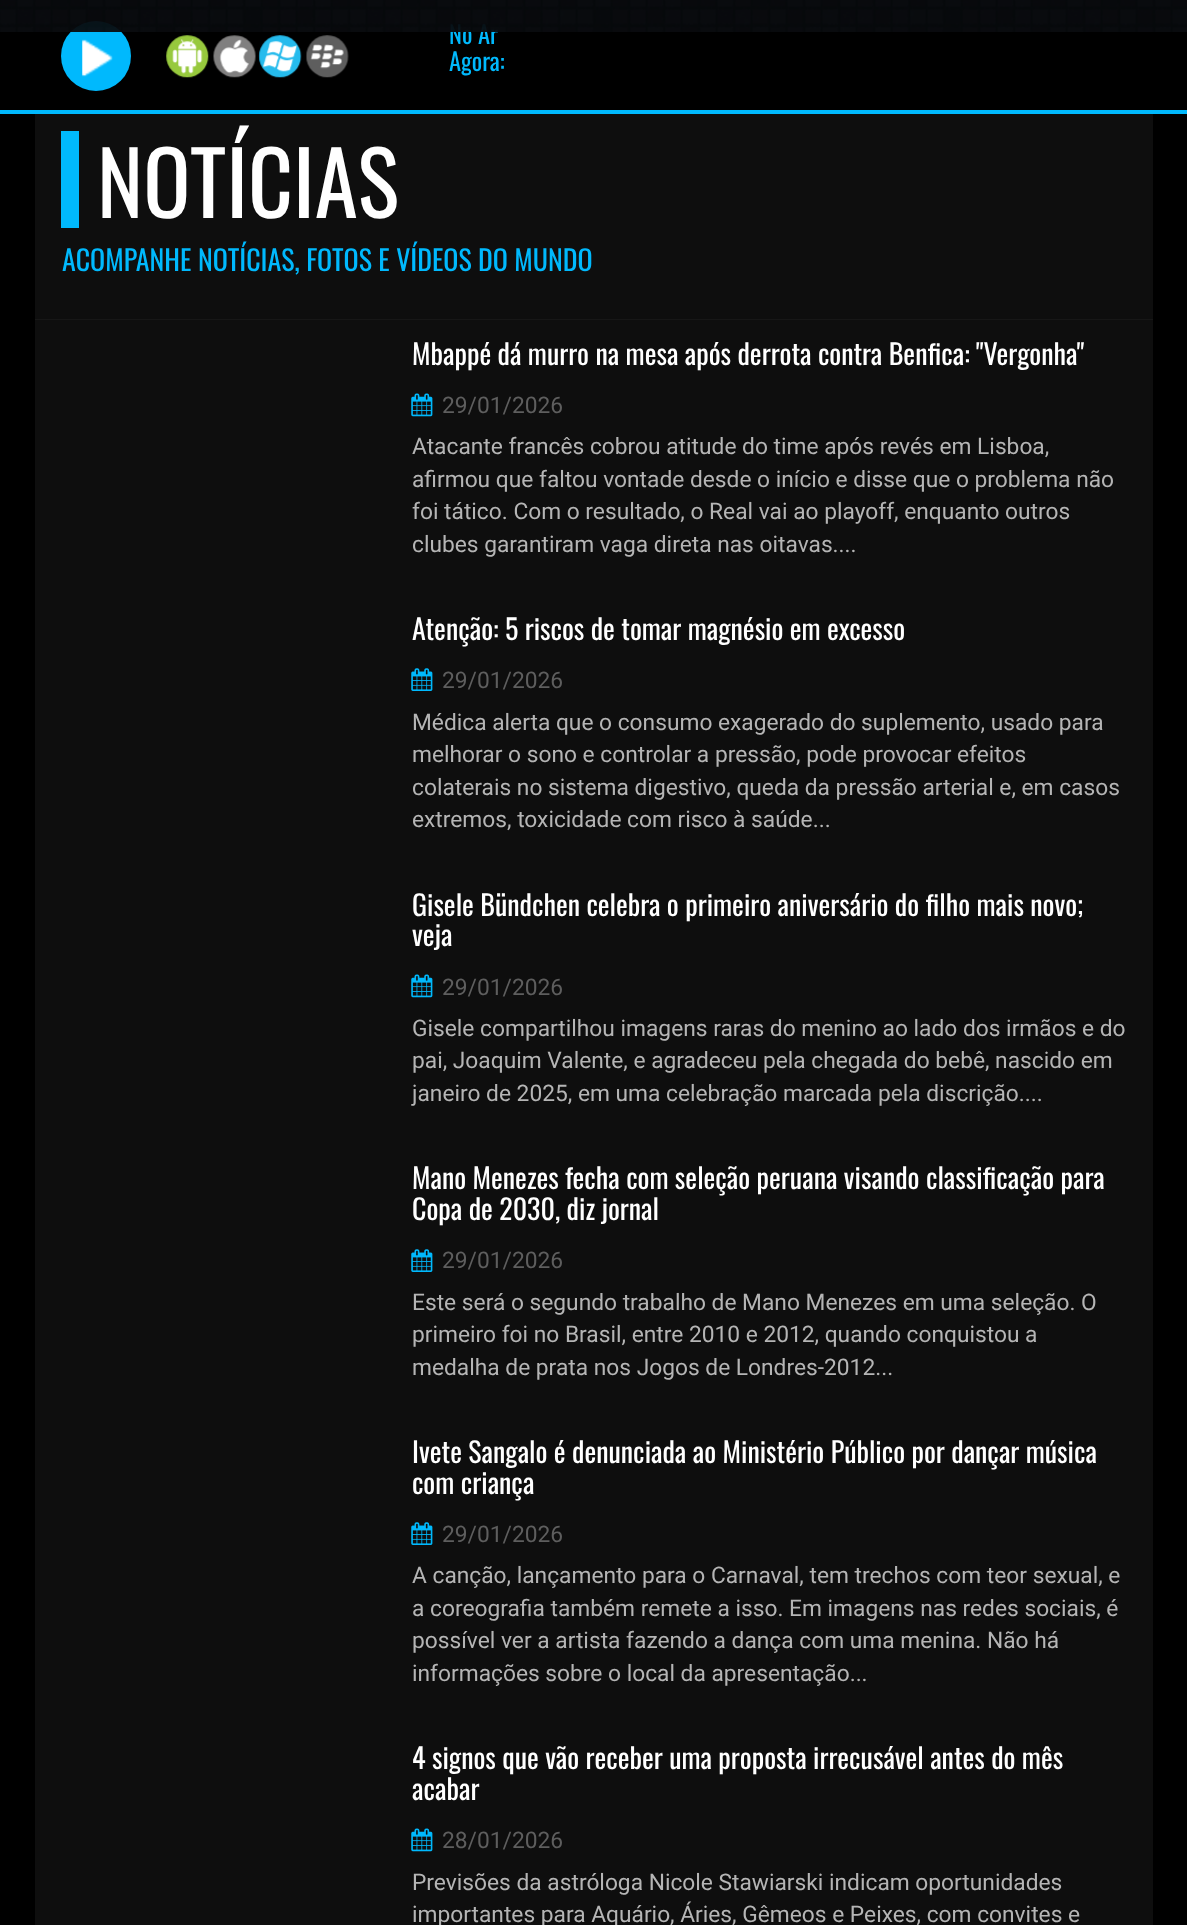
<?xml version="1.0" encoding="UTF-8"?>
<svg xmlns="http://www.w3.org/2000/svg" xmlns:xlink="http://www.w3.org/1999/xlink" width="1187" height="1925">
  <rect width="100%" height="100%" fill="#000000" />
  <rect x="35" y="320" width="1118" height="1605" fill="#0e0e0e" />
  <rect y="110" width="1187" height="4" fill="#00b9fd" />
  <circle cx="96" cy="56" r="35" fill="#00b9fd" />
  <image x="82" y="39" width="31" height="38" xlink:href="image2.png" />
  <image x="166" y="35" width="43" height="43" xlink:href="image3.png" />
  <image x="213" y="35" width="43" height="43" xlink:href="image4.png" />
  <image x="258" y="35" width="44" height="43" xlink:href="image5.png" />
  <image x="306" y="35" width="43" height="43" xlink:href="image6.png" />
  <rect x="35" y="114" width="1118" height="205" fill="#0e0e0e" />
  <rect x="35" y="319" width="1118" height="1" fill="#171717" />
  <rect x="61" y="131" width="18" height="97" fill="#00b9fd" />
  <image x="411" y="393" width="22" height="24" xlink:href="image7.png" />
  <image x="411" y="668" width="22" height="23" xlink:href="image8.png" />
  <image x="411" y="974" width="22" height="24" xlink:href="image7.png" />
  <image x="411" y="1249" width="22" height="23" xlink:href="image8.png" />
  <image x="411" y="1522" width="22" height="23" xlink:href="image8.png" />
  <image x="411" y="1828" width="22" height="24" xlink:href="image7.png" />
  <text x="449" y="44" style="font-family: Oswald; font-size: 24.5px; fill: #00b9fd">No Ar</text>
  <image x="0" y="0" width="1187" height="32" xlink:href="image1.png" />
  <text x="449" y="71" style="font-family: Oswald; font-size: 24.5px; fill: #00b9fd">Agora:</text>
  <text x="97" y="218" style="font-family: Oswald; font-size: 87.5px; fill: #ffffff">NOTÍCIAS</text>
  <text x="62" y="271" style="font-family: Oswald; font-size: 28px; fill: #00b9fd">ACOMPANHE NOTÍCIAS, FOTOS E VÍDEOS DO MUNDO</text>
  <text x="412" y="365" style="font-family: Oswald; font-size: 28px; fill: #ffffff">Mbappé dá murro na mesa após derrota contra Benfica: "Vergonha"</text>
  <text x="442" y="413" style="font-family: Roboto; font-size: 22.75px; fill: #5e5e5e">29/01/2026</text>
  <text x="412" y="454" style="font-family: Roboto; font-size: 22.75px; fill: #b5b5b5">Atacante francês cobrou atitude do time após revés em Lisboa,</text>
  <text x="412" y="487" style="font-family: Roboto; font-size: 22.75px; fill: #b5b5b5">afirmou que faltou vontade desde o início e disse que o problema não</text>
  <text x="412" y="519" style="font-family: Roboto; font-size: 22.75px; fill: #b5b5b5">foi tático. Com o resultado, o Real vai ao playoff, enquanto outros</text>
  <text x="412" y="552" style="font-family: Roboto; font-size: 22.75px; fill: #b5b5b5">clubes garantiram vaga direta nas oitavas....</text>
  <text x="412" y="640" style="font-family: Oswald; font-size: 28px; fill: #ffffff">Atenção: 5 riscos de tomar magnésio em excesso</text>
  <text x="442" y="688" style="font-family: Roboto; font-size: 22.75px; fill: #5e5e5e">29/01/2026</text>
  <text x="412" y="730" style="font-family: Roboto; font-size: 22.75px; fill: #b5b5b5">Médica alerta que o consumo exagerado do suplemento, usado para</text>
  <text x="412" y="762" style="font-family: Roboto; font-size: 22.75px; fill: #b5b5b5">melhorar o sono e controlar a pressão, pode provocar efeitos</text>
  <text x="412" y="795" style="font-family: Roboto; font-size: 22.75px; fill: #b5b5b5">colaterais no sistema digestivo, queda da pressão arterial e, em casos</text>
  <text x="412" y="827" style="font-family: Roboto; font-size: 22.75px; fill: #b5b5b5">extremos, toxicidade com risco à saúde...</text>
  <text x="412" y="916" style="font-family: Oswald; font-size: 28px; fill: #ffffff">Gisele Bündchen celebra o primeiro aniversário do filho mais novo;</text>
  <text x="412" y="946" style="font-family: Oswald; font-size: 28px; fill: #ffffff">veja</text>
  <text x="442" y="995" style="font-family: Roboto; font-size: 22.75px; fill: #5e5e5e">29/01/2026</text>
  <text x="412" y="1036" style="font-family: Roboto; font-size: 22.75px; fill: #b5b5b5">Gisele compartilhou imagens raras do menino ao lado dos irmãos e do</text>
  <text x="412" y="1068" style="font-family: Roboto; font-size: 22.75px; fill: #b5b5b5">pai, Joaquim Valente, e agradeceu pela chegada do bebê, nascido em</text>
  <text x="412" y="1101" style="font-family: Roboto; font-size: 22.75px; fill: #b5b5b5">janeiro de 2025, em uma celebração marcada pela discrição....</text>
  <text x="412" y="1189" style="font-family: Oswald; font-size: 28px; fill: #ffffff">Mano Menezes fecha com seleção peruana visando classificação para</text>
  <text x="412" y="1220" style="font-family: Oswald; font-size: 28px; fill: #ffffff">Copa de 2030, diz jornal</text>
  <text x="442" y="1268" style="font-family: Roboto; font-size: 22.75px; fill: #5e5e5e">29/01/2026</text>
  <text x="412" y="1310" style="font-family: Roboto; font-size: 22.75px; fill: #b5b5b5">Este será o segundo trabalho de Mano Menezes em uma seleção. O</text>
  <text x="412" y="1342" style="font-family: Roboto; font-size: 22.75px; fill: #b5b5b5">primeiro foi no Brasil, entre 2010 e 2012, quando conquistou a</text>
  <text x="412" y="1375" style="font-family: Roboto; font-size: 22.75px; fill: #b5b5b5">medalha de prata nos Jogos de Londres-2012...</text>
  <text x="412" y="1463" style="font-family: Oswald; font-size: 28px; fill: #ffffff">Ivete Sangalo é denunciada ao Ministério Público por dançar música</text>
  <text x="412" y="1494" style="font-family: Oswald; font-size: 28px; fill: #ffffff">com criança</text>
  <text x="442" y="1542" style="font-family: Roboto; font-size: 22.75px; fill: #5e5e5e">29/01/2026</text>
  <text x="412" y="1583" style="font-family: Roboto; font-size: 22.75px; fill: #b5b5b5">A canção, lançamento para o Carnaval, tem trechos com teor sexual, e</text>
  <text x="412" y="1616" style="font-family: Roboto; font-size: 22.75px; fill: #b5b5b5">a coreografia também remete a isso. Em imagens nas redes sociais, é</text>
  <text x="412" y="1648" style="font-family: Roboto; font-size: 22.75px; fill: #b5b5b5">possível ver a artista fazendo a dança com uma menina. Não há</text>
  <text x="412" y="1681" style="font-family: Roboto; font-size: 22.75px; fill: #b5b5b5">informações sobre o local da apresentação...</text>
  <text x="412" y="1769" style="font-family: Oswald; font-size: 28px; fill: #ffffff">4 signos que vão receber uma proposta irrecusável antes do mês</text>
  <text x="412" y="1800" style="font-family: Oswald; font-size: 28px; fill: #ffffff">acabar</text>
  <text x="442" y="1848" style="font-family: Roboto; font-size: 22.75px; fill: #5e5e5e">28/01/2026</text>
  <text x="412" y="1890" style="font-family: Roboto; font-size: 22.75px; fill: #b5b5b5">Previsões da astróloga Nicole Stawiarski indicam oportunidades</text>
  <text x="412" y="1922" style="font-family: Roboto; font-size: 22.75px; fill: #b5b5b5">importantes para Aquário, Áries, Gêmeos e Peixes, com convites e</text>
</svg>
